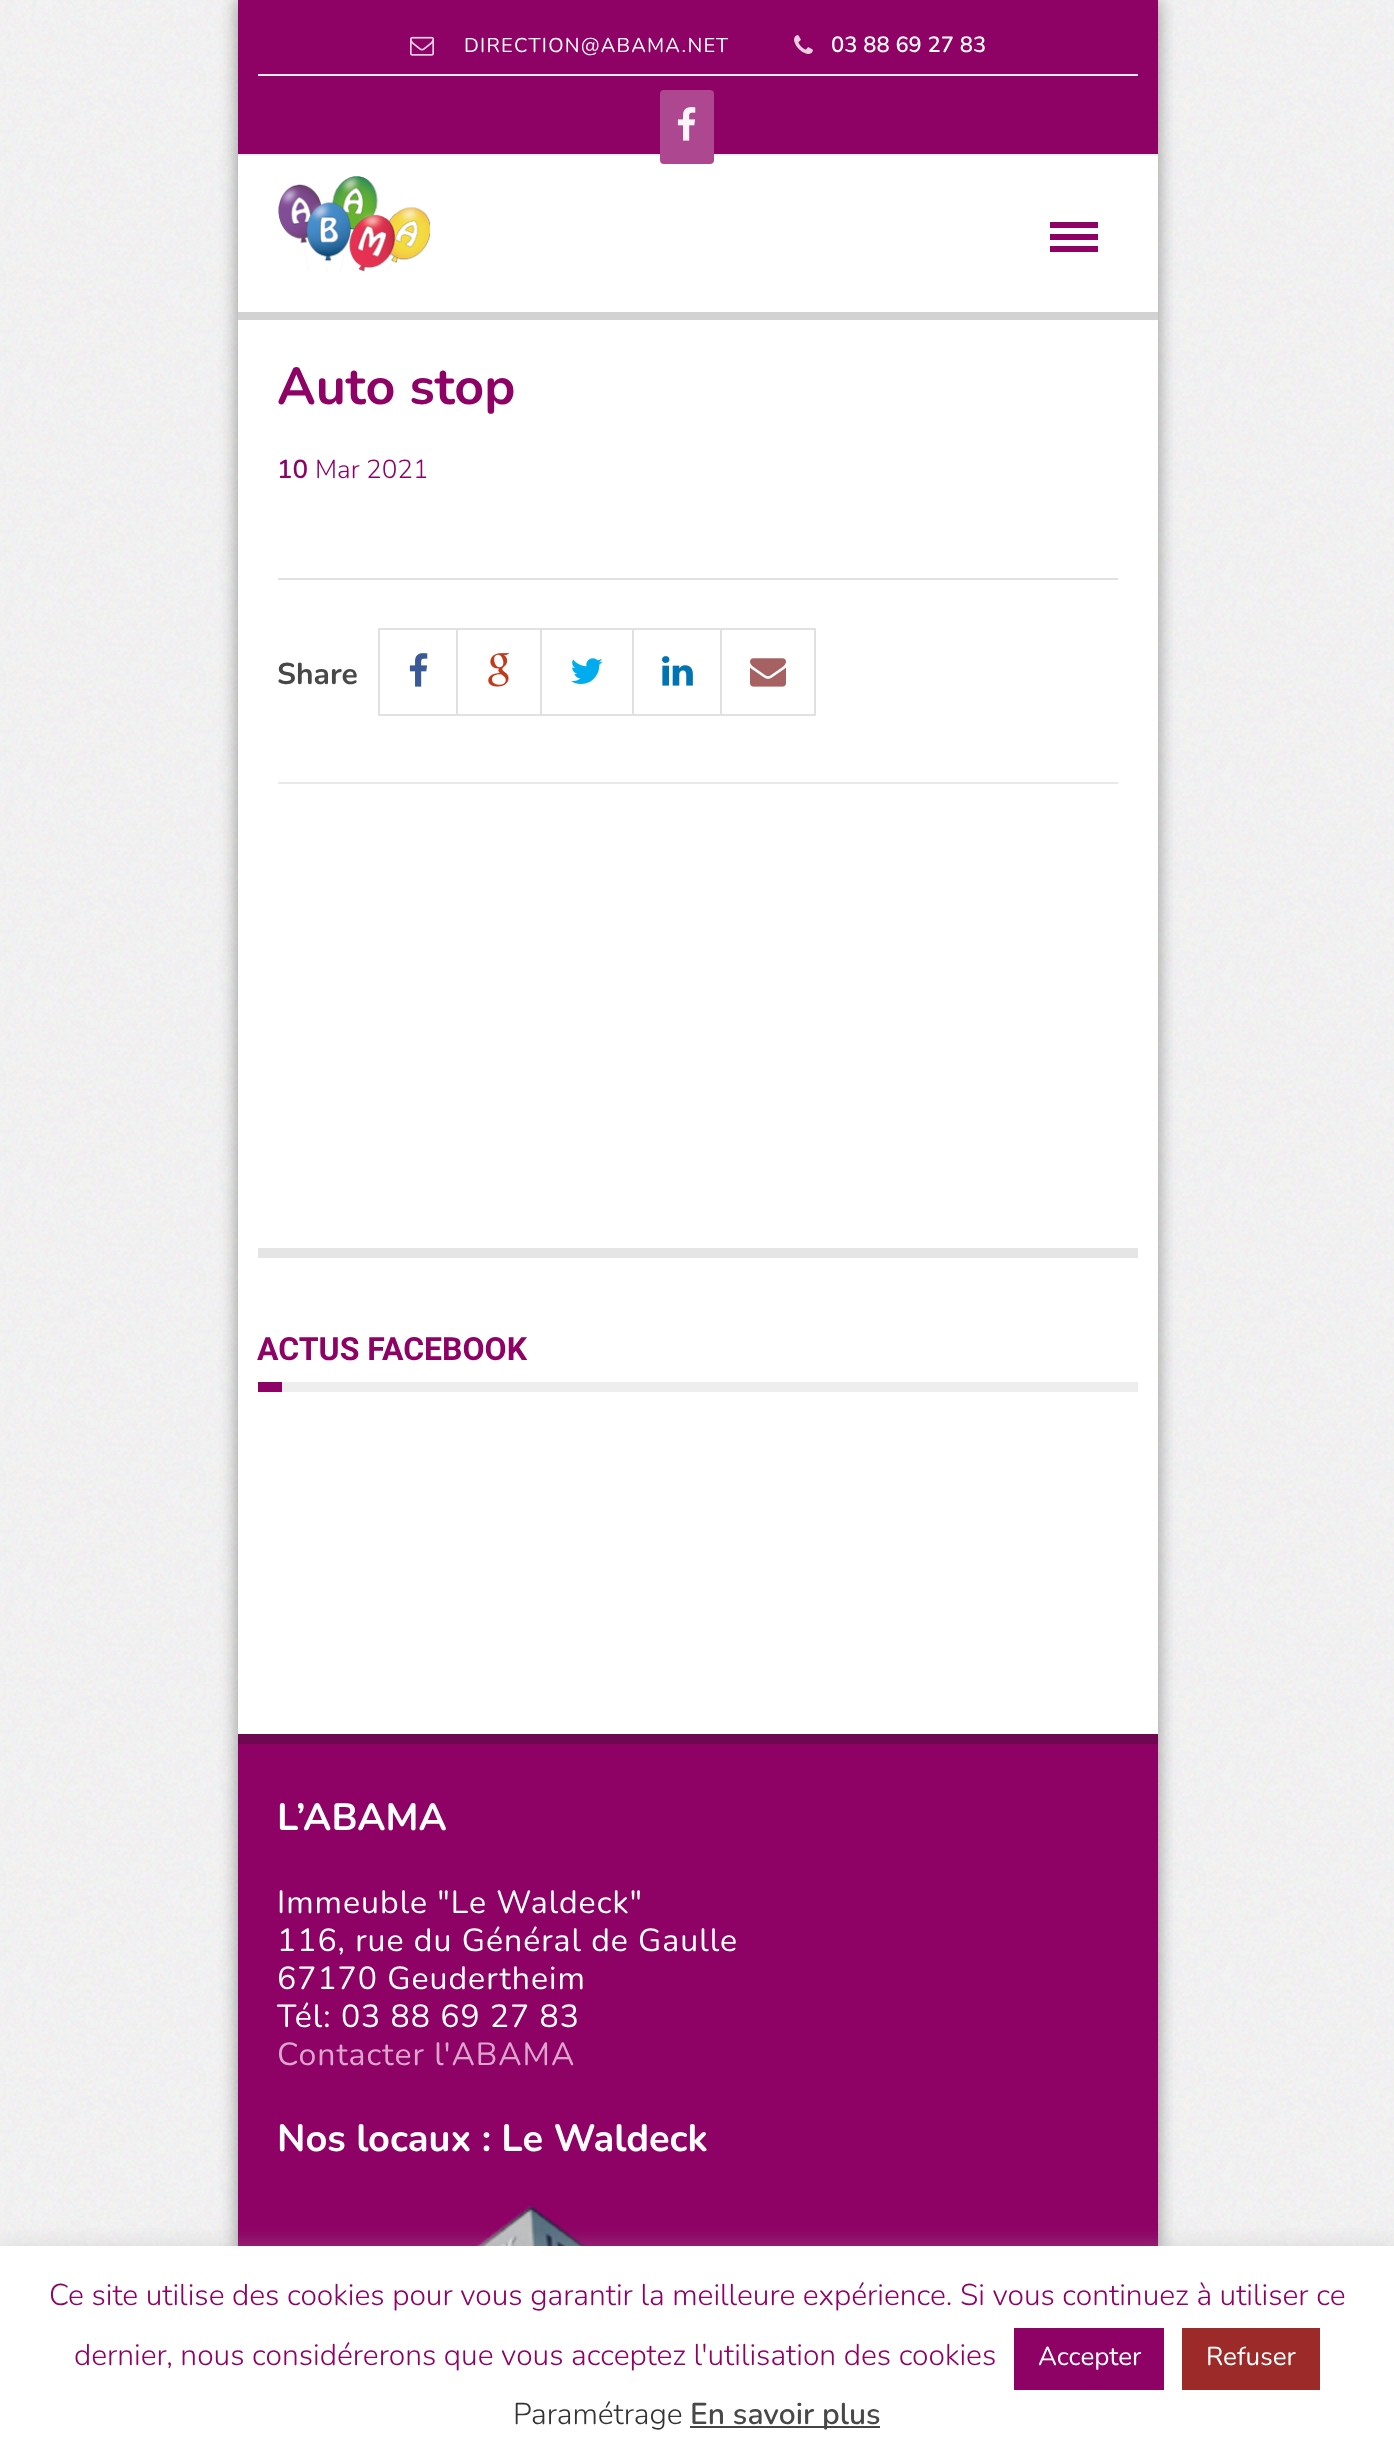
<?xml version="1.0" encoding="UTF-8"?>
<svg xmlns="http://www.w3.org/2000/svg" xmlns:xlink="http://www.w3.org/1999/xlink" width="1394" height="2460">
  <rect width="100%" height="100%" fill="#ffffff" />
  <image x="0" y="0" width="1394" height="2246" xlink:href="image1.png" />
  <rect x="238" width="920" height="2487" fill="#000000" fill-opacity="0.4" filter="blur(9px)" />
  <rect x="238" y="156" width="920" height="1578" fill="#ffffff" />
  <rect x="238" width="920" height="154" fill="#8e0265" />
  <rect x="238" y="154" width="920" height="2" fill="#f3f3f3" />
  <rect x="258" y="74" width="880" height="2" fill="#e9e9e9" />
  <image x="410" y="36" width="24" height="20" xlink:href="image2.png" />
  <image x="794" y="35" width="19" height="19" xlink:href="image3.png" />
  <rect x="660" y="90" width="54" height="74" rx="4" fill="#ad4890" />
  <image x="677" y="107" width="19" height="34" xlink:href="image4.png" />
  <rect x="238" y="312" width="920" height="8" fill="#d2d2d2" />
  <image x="278" y="176" width="153" height="96" xlink:href="image5.png" />
  <rect x="1050" y="222" width="48" height="6" fill="#8e0265" />
  <rect x="1050" y="234" width="48" height="6" fill="#8e0265" />
  <rect x="1050" y="246" width="48" height="6" fill="#8e0265" />
  <rect x="278" y="578" width="840" height="2" fill="#e1e1e1" />
  <rect x="378" y="628" width="342" height="2" fill="#e1e1e1" />
  <rect x="378" y="714" width="342" height="2" fill="#e1e1e1" />
  <rect x="378" y="628" width="2" height="88" fill="#e1e1e1" />
  <image x="409" y="653" width="19" height="34" xlink:href="image6.png" />
  <rect x="456" y="628" width="2" height="88" fill="#e1e1e1" />
  <image x="488" y="653" width="22" height="34" xlink:href="image7.png" />
  <rect x="540" y="628" width="2" height="88" fill="#e1e1e1" />
  <image x="571" y="658" width="32" height="26" xlink:href="image8.png" />
  <rect x="632" y="628" width="2" height="88" fill="#e1e1e1" />
  <image x="662" y="656" width="31" height="30" xlink:href="image9.png" />
  <rect x="721" y="629" width="94" height="86" fill="none" stroke="#e1e1e1" stroke-width="2" />
  <image x="750" y="658" width="36" height="29" xlink:href="image10.png" />
  <rect x="278" y="782" width="840" height="2" fill="#e9e9e9" />
  <rect x="258" y="1248" width="880" height="10" fill="#e5e5e5" />
  <rect x="258" y="1382" width="24" height="10" fill="#8e0265" />
  <rect x="282" y="1382" width="856" height="10" fill="#eeeeee" />
  <rect x="238" y="1744" width="920" height="502" fill="#8e0265" />
  <rect x="238" y="1734" width="920" height="10" fill="#700751" />
  <image x="476" y="2206" width="110" height="40" xlink:href="image11.png" />
  <rect y="2244" width="1394" height="214" fill="#acabab" fill-opacity="0.3" filter="blur(10px)" />
  <rect y="2246" width="1394" height="214" fill="#ffffff" />
  <rect x="1014" y="2328" width="150" height="62" fill="#8e0265" />
  <rect x="1182" y="2328" width="138" height="62" fill="#9b2a28" />
  <rect x="690" y="2426" width="190" height="2" fill="#444444" />
  <text x="464" y="52" style="font-family: Nunito; font-size: 20px; letter-spacing: 1.25px; fill: #ffffff">DIRECTION@ABAMA.NET</text>
  <text x="831" y="52" style="font-family: Nunito; font-size: 22px; font-weight: 600; fill: #ffffff">03 88 69 27 83</text>
  <text x="277" y="404" style="font-family: Nunito; font-size: 52px; font-weight: bold; fill: #8e0265">Auto stop</text>
  <text x="277" y="478" style="font-family: Nunito; font-size: 26px; font-weight: 600; fill: #8e0265">10</text>
  <text x="315" y="478" style="font-family: Nunito; font-size: 26px; font-weight: 300; fill: #8e0265">Mar 2021</text>
  <text x="277" y="684" style="font-family: Nunito; font-size: 30px; font-weight: bold; fill: #484848">Share</text>
  <text x="257" y="1360" style="font-family: Roboto; font-size: 32px; font-weight: bold; fill: #8e0265">ACTUS FACEBOOK</text>
  <text x="277" y="1830" style="font-family: Nunito; font-size: 38px; font-weight: bold; fill: #ffffff">L’ABAMA</text>
  <text x="277" y="1913" style="font-family: Nunito; font-size: 32px; letter-spacing: 1px; fill: #ffffff">Immeuble "Le Waldeck"</text>
  <text x="277" y="1951" style="font-family: Nunito; font-size: 32px; letter-spacing: 1px; fill: #ffffff">116, rue du Général de Gaulle</text>
  <text x="277" y="1989" style="font-family: Nunito; font-size: 32px; letter-spacing: 1px; fill: #ffffff">67170 Geudertheim</text>
  <text x="277" y="2027" style="font-family: Nunito; font-size: 32px; letter-spacing: 1px; fill: #ffffff">Tél: 03 88 69 27 83</text>
  <text x="277" y="2065" style="font-family: Nunito; font-size: 32px; letter-spacing: 1px; fill: #dda4cd">Contacter l'ABAMA</text>
  <text x="277" y="2151" style="font-family: Nunito; font-size: 38px; font-weight: bold; fill: #ffffff">Nos locaux : Le Waldeck</text>
  <text x="49" y="2305" style="font-family: Nunito; font-size: 30px; font-weight: 300; fill: #8e0265">Ce site utilise des cookies pour vous garantir la meilleure expérience. Si vous continuez à utiliser ce</text>
  <text x="74" y="2365" style="font-family: Nunito; font-size: 30px; font-weight: 300; fill: #8e0265">dernier, nous considérerons que vous acceptez l'utilisation des cookies</text>
  <text x="1038" y="2365" style="font-family: Nunito; font-size: 26px; fill: #ffffff">Accepter</text>
  <text x="1206" y="2365" style="font-family: Nunito; font-size: 26px; fill: #ffffff">Refuser</text>
  <text x="513" y="2424" style="font-family: Nunito; font-size: 30px; font-weight: 300; fill: #333333">Paramétrage</text>
  <text x="690" y="2424" style="font-family: Nunito; font-size: 30px; font-weight: 600; fill: #484848">En savoir plus</text>
</svg>
